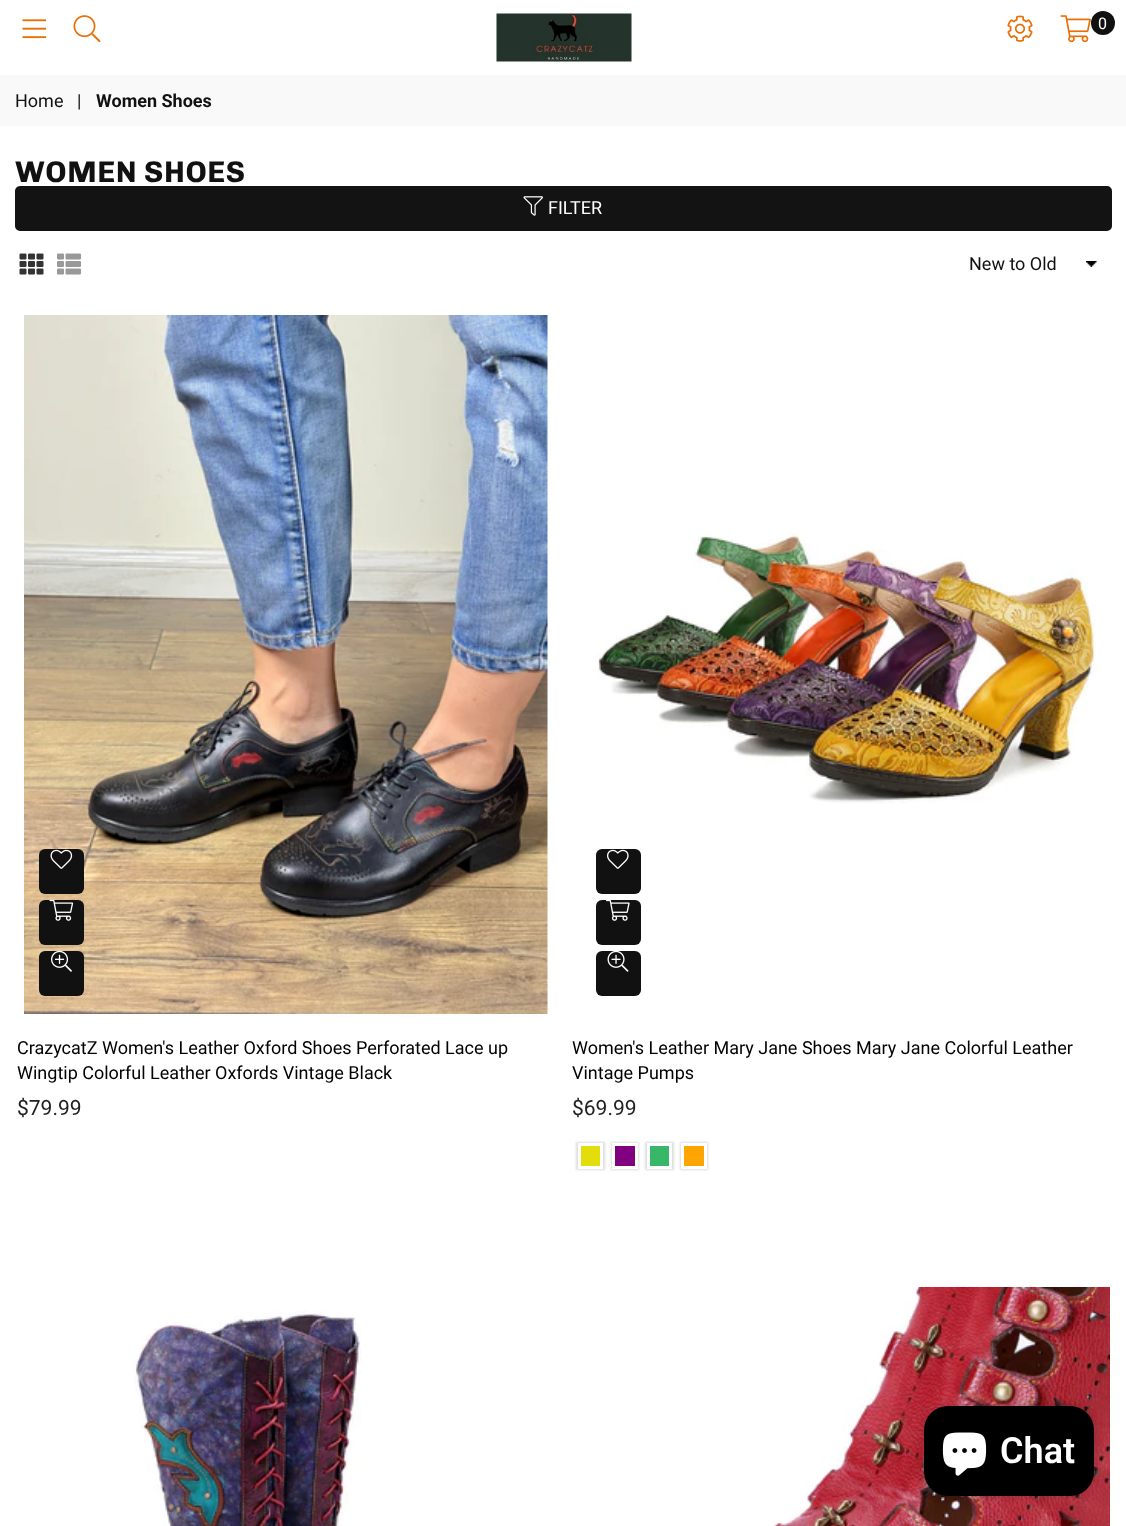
<?xml version="1.0" encoding="UTF-8"?>
<svg xmlns="http://www.w3.org/2000/svg" xmlns:xlink="http://www.w3.org/1999/xlink" width="1126" height="1526">
  <rect width="100%" height="100%" fill="#ffffff" />
  <image x="22" y="19" width="25" height="20" xlink:href="image1.png" />
  <image x="73" y="15" width="28" height="28" xlink:href="image2.png" />
  <image x="496" y="13" width="136" height="49" xlink:href="image3.png" />
  <image x="1007" y="15" width="26" height="27" xlink:href="image4.png" />
  <image x="1060" y="15" width="31" height="28" xlink:href="image5.png" />
  <circle cx="1103" cy="23" r="12" fill="#111111" />
  <rect y="75" width="1126" height="51" fill="#f9f9f9" />
  <rect x="16.5" y="187.5" width="1094" height="42" rx="3.5" fill="#131313" stroke="#131313" stroke-width="3" />
  <image x="523" y="196" width="20" height="20" xlink:href="image6.png" />
  <image x="19" y="253" width="25" height="22" xlink:href="image7.png" />
  <image x="57" y="253" width="24" height="22" xlink:href="image8.png" />
  <image x="1086" y="261" width="11" height="6" xlink:href="image9.png" />
  <image x="24" y="315" width="524" height="699" xlink:href="image10.png" />
  <rect x="39" y="849" width="45" height="45" rx="6" fill="#111111" />
  <image x="50" y="849" width="23" height="20" xlink:href="image11.png" />
  <rect x="39" y="900" width="45" height="45" rx="6" fill="#111111" />
  <image x="49" y="899" width="25" height="22" xlink:href="image12.png" />
  <rect x="39" y="951" width="45" height="45" rx="6" fill="#111111" />
  <image x="51" y="950" width="21" height="22" xlink:href="image13.png" />
  <image x="595" y="531" width="501" height="273" xlink:href="image14.png" />
  <rect x="596" y="849" width="45" height="45" rx="6" fill="#111111" />
  <image x="607" y="849" width="22" height="20" xlink:href="image15.png" />
  <rect x="596" y="900" width="45" height="45" rx="6" fill="#111111" />
  <image x="606" y="900" width="24" height="21" xlink:href="image16.png" />
  <rect x="596" y="951" width="45" height="45" rx="6" fill="#111111" />
  <image x="607" y="951" width="22" height="21" xlink:href="image17.png" />
  <rect x="576" y="1142" width="29" height="28" fill="#dddddd" filter="blur(1px)" />
  <rect x="579.5" y="1144.5" width="22" height="23" fill="#e3dd0b" stroke="#ffffff" stroke-width="3" />
  <rect x="611" y="1142" width="28" height="28" fill="#dddddd" filter="blur(1px)" />
  <rect x="613.5" y="1144.5" width="23" height="23" fill="#800080" stroke="#ffffff" stroke-width="3" />
  <rect x="645" y="1142" width="29" height="28" fill="#dddddd" filter="blur(1px)" />
  <rect x="648.5" y="1144.5" width="22" height="23" fill="#37b767" stroke="#ffffff" stroke-width="3" />
  <rect x="680" y="1142" width="28" height="28" fill="#dddddd" filter="blur(1px)" />
  <rect x="682.5" y="1144.5" width="23" height="23" fill="#ffa500" stroke="#ffffff" stroke-width="3" />
  <image x="133" y="1310" width="229" height="216" xlink:href="image18.png" />
  <image x="773" y="1287" width="337" height="239" xlink:href="image19.png" />
  <rect x="924" y="1406" width="170" height="90" rx="24" fill="#000000" fill-opacity="0.15" filter="blur(4px)" />
  <rect x="924" y="1406" width="170" height="90" rx="24" fill="#000000" />
  <image x="942" y="1432" width="45" height="44" xlink:href="image20.png" />
  <text x="1098" y="29" style="font-family: Roboto; font-size: 16px; fill: #ffffff">0</text>
  <text x="15" y="107" style="font-family: Roboto; font-size: 18px; fill: #111111">Home</text>
  <text x="77" y="107" style="font-family: Roboto; font-size: 18px; fill: #111111">|</text>
  <text x="96" y="107" style="font-family: Roboto; font-size: 18px; font-weight: bold; fill: #111111">Women Shoes</text>
  <text x="15" y="182" style="font-family: Chivo; font-size: 30px; font-weight: bold; letter-spacing: 0.6px; fill: #111111">WOMEN SHOES</text>
  <text x="548" y="214" style="font-family: Roboto; font-size: 18px; fill: #ffffff">FILTER</text>
  <text x="969" y="270" style="font-family: Roboto; font-size: 18px; fill: #111111">New to Old</text>
  <text x="17" y="1054" style="font-family: Roboto; font-size: 18px; fill: #000000">CrazycatZ Women's Leather Oxford Shoes Perforated Lace up</text>
  <text x="17" y="1079" style="font-family: Roboto; font-size: 18px; fill: #000000">Wingtip Colorful Leather Oxfords Vintage Black</text>
  <text x="17" y="1115" style="font-family: Roboto; font-size: 21px; fill: #222222">$79.99</text>
  <text x="572" y="1054" style="font-family: Roboto; font-size: 18px; fill: #000000">Women's Leather Mary Jane Shoes Mary Jane Colorful Leather</text>
  <text x="572" y="1079" style="font-family: Roboto; font-size: 18px; fill: #000000">Vintage Pumps</text>
  <text x="572" y="1115" style="font-family: Roboto; font-size: 21px; fill: #222222">$69.99</text>
  <text x="1000" y="1463" style="font-family: Roboto; font-size: 36px; font-weight: 600; fill: #ffffff">Chat</text>
</svg>
